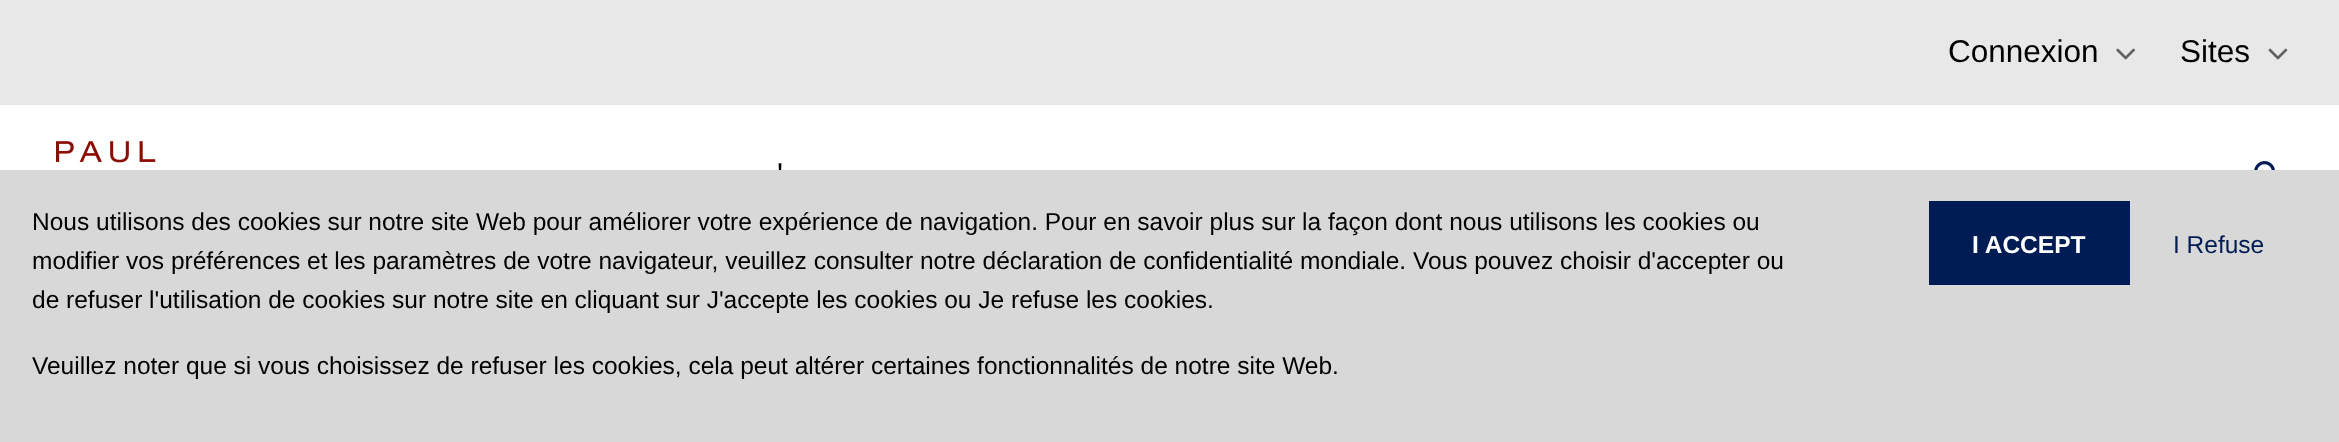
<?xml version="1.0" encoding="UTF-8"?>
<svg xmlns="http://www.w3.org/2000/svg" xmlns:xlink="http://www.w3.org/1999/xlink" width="2339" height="442">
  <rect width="100%" height="100%" fill="#ffffff" />
  <rect width="2339" height="105" fill="#e8e8e8" />
  <image x="2116" y="48" width="20" height="12" xlink:href="image1.png" />
  <image x="2268" y="48" width="20" height="12" xlink:href="image2.png" />
  <image x="56" y="141" width="100" height="22" xlink:href="image3.png" />
  <image x="2254" y="161" width="21" height="9" xlink:href="image4.png" />
  <text x="1948" y="62" style="font-family: Liberation Sans; font-size: 31.5px; fill: #000000">Connexion</text>
  <text x="2180" y="62" style="font-family: Liberation Sans; font-size: 31.5px; fill: #000000">Sites</text>
  <text x="777" y="185" style="font-family: Liberation Sans; font-size: 31.5px; fill: #000000">'</text>
  <rect y="170" width="2339" height="272" fill="#d8d8d8" />
  <text x="32" y="230" style="font-family: Liberation Sans; font-size: 24.5px; fill: #000000">Nous utilisons des cookies sur notre site Web pour améliorer votre expérience de navigation. Pour en savoir plus sur la façon dont nous utilisons les cookies ou</text>
  <text x="32" y="269" style="font-family: Liberation Sans; font-size: 24.5px; fill: #000000">modifier vos préférences et les paramètres de votre navigateur, veuillez consulter notre déclaration de confidentialité mondiale. Vous pouvez choisir d'accepter ou</text>
  <text x="32" y="308" style="font-family: Liberation Sans; font-size: 24.5px; fill: #000000">de refuser l'utilisation de cookies sur notre site en cliquant sur J'accepte les cookies ou Je refuse les cookies.</text>
  <text x="32" y="374" style="font-family: Liberation Sans; font-size: 24.5px; fill: #000000">Veuillez noter que si vous choisissez de refuser les cookies, cela peut altérer certaines fonctionnalités de notre site Web.</text>
  <rect x="1929" y="201" width="201" height="84" fill="#001c54" />
  <text x="1972" y="253" style="font-family: Liberation Sans; font-size: 24.5px; font-weight: bold; fill: #ffffff">I ACCEPT</text>
  <text x="2173" y="253" style="font-family: Liberation Sans; font-size: 24.5px; fill: #001c54">I Refuse</text>
</svg>
